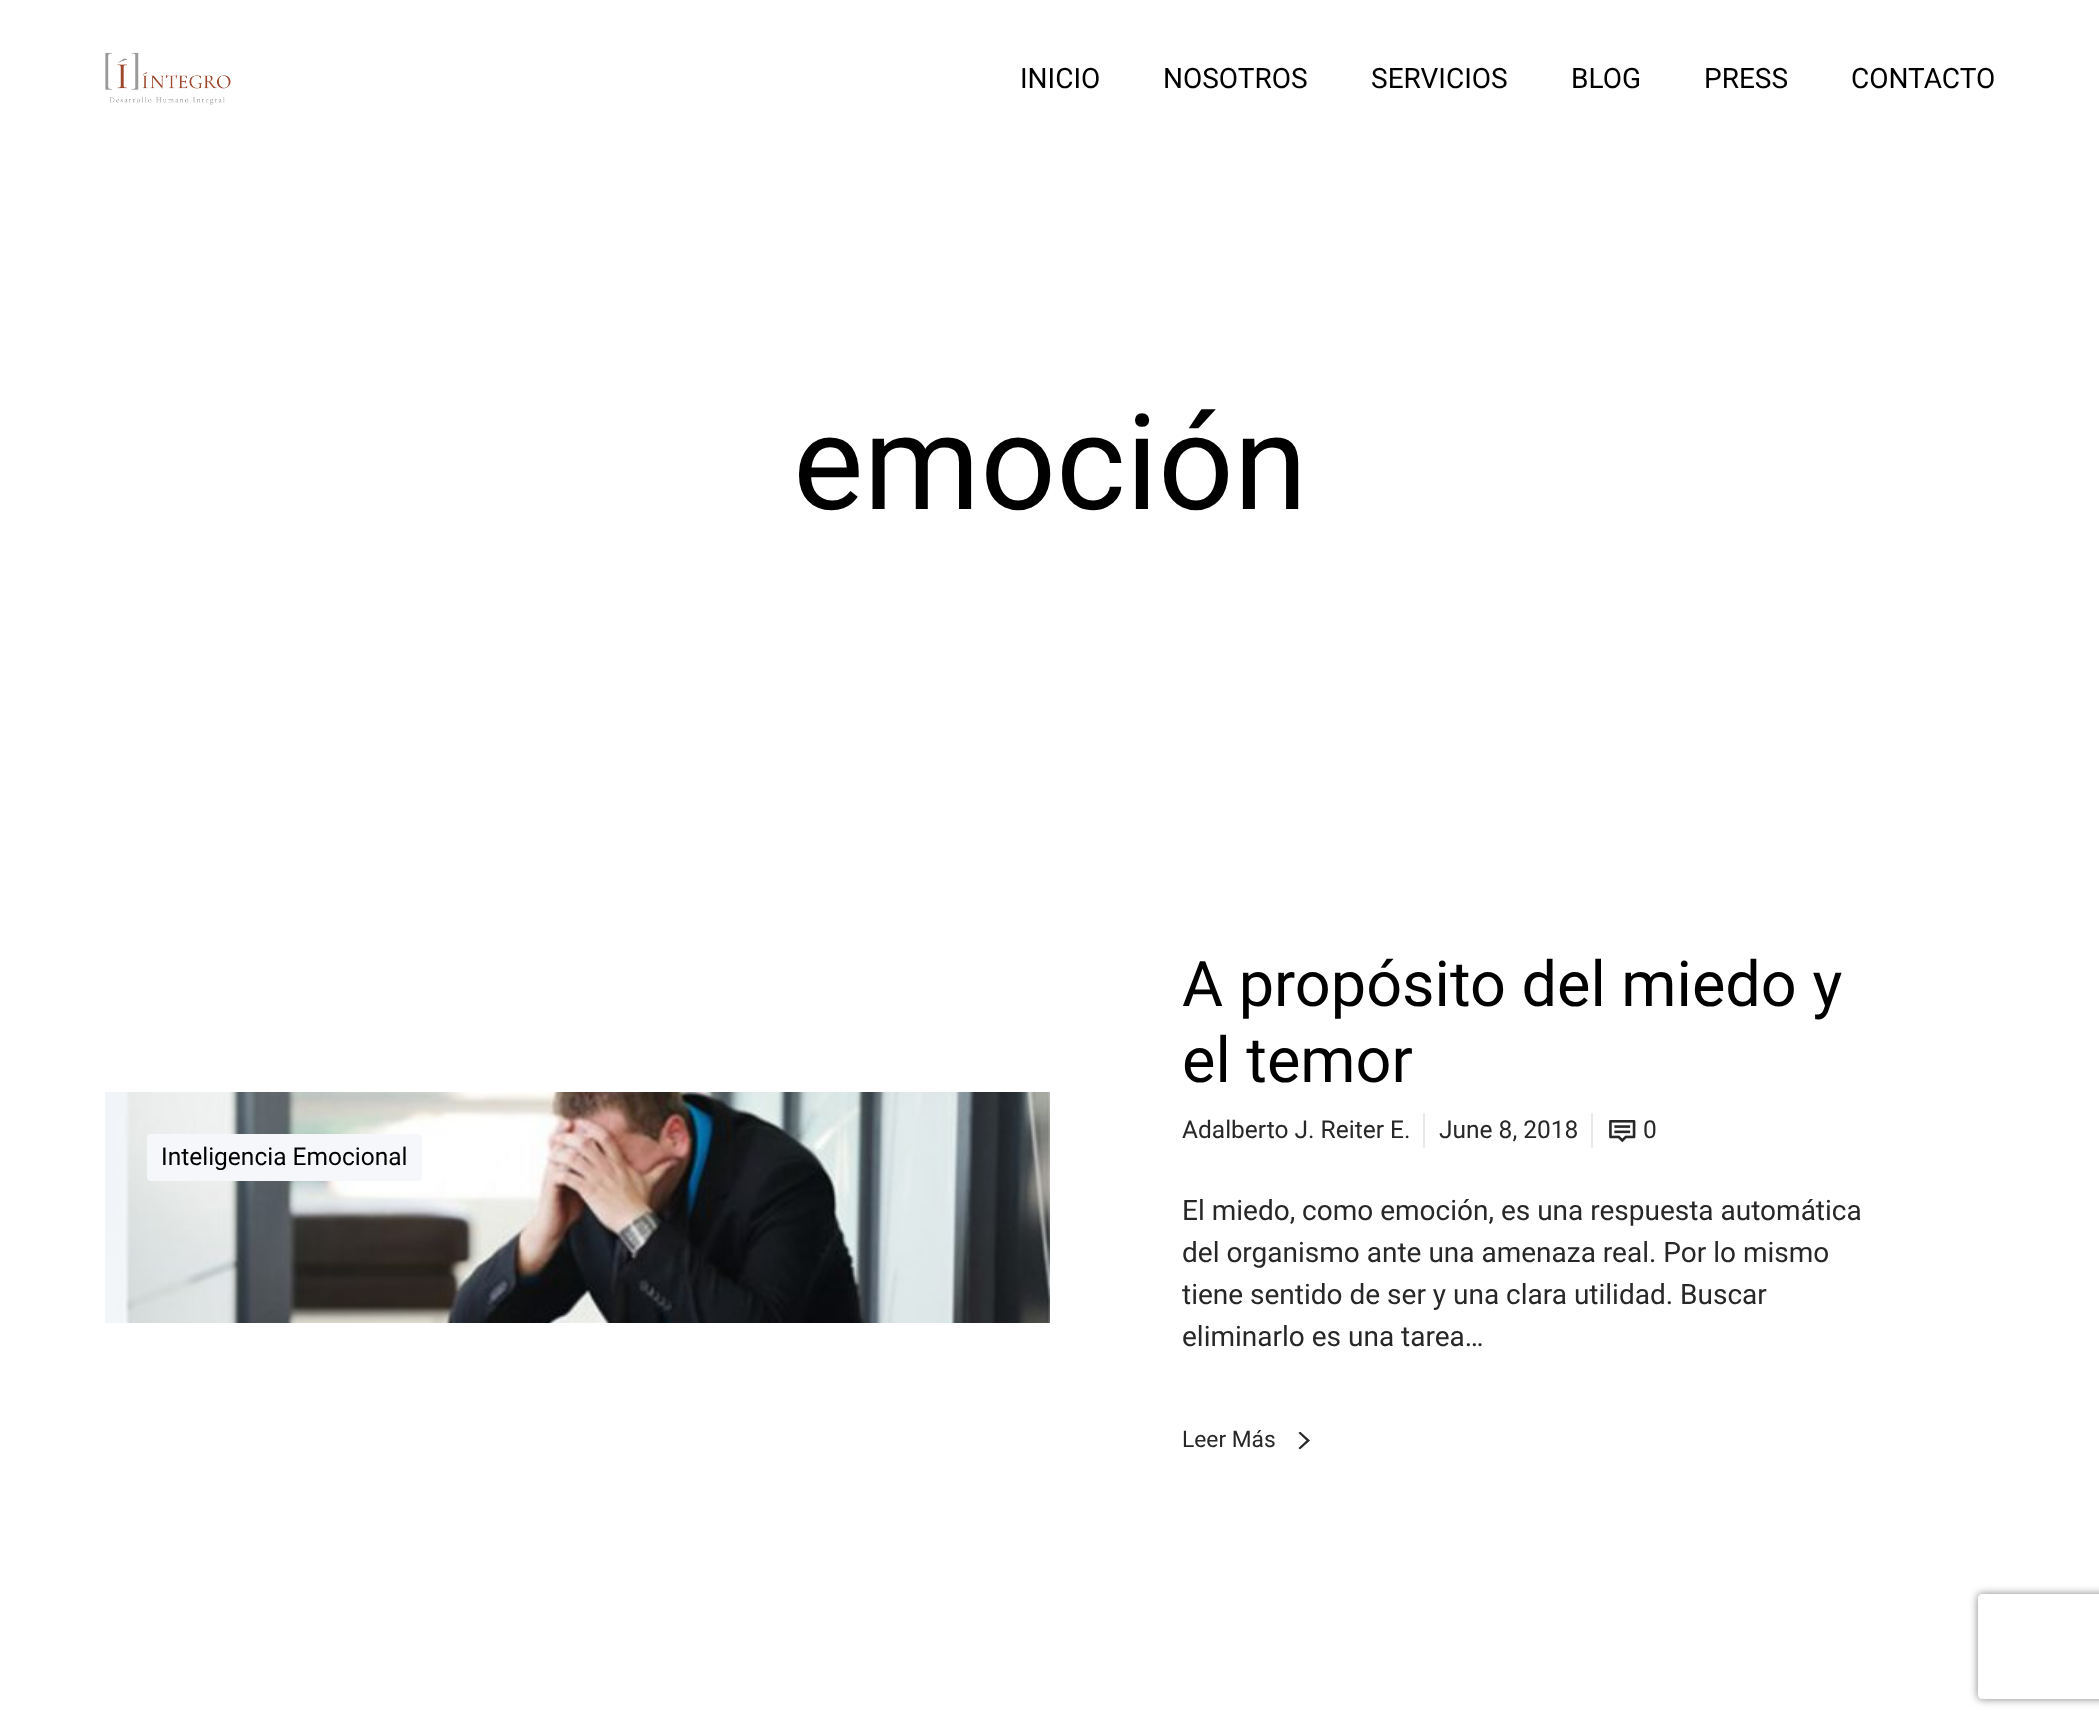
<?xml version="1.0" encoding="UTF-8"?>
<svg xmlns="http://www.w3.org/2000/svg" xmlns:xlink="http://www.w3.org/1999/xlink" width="2099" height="1723">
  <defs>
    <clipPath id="clip1"><rect x="1265" y="1432" width="46" height="17" /></clipPath>
    <clipPath id="clip2"><path d="M 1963 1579 h 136 v 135 h -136 z m 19 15 h 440 c 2 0 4 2 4 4 v 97 c 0 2 -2 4 -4 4 h -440 c -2 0 -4 -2 -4 -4 v -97 c 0 -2 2 -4 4 -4 z" clip-rule="evenodd" /></clipPath>
  </defs>
  <rect width="100%" height="100%" fill="#ffffff" />
  <image x="105" y="52" width="126" height="53" xlink:href="image1.png" />
  <image x="105" y="1092" width="945" height="231" xlink:href="image2.png" />
  <rect x="147" y="1134" width="275" height="47" rx="4" fill="#f6f7fa" />
  <rect x="1423" y="1113" width="2" height="35" fill="#e9e9e9" />
  <rect x="1591" y="1113" width="2" height="35" fill="#e9e9e9" />
  <image x="1609" y="1120" width="27" height="23" xlink:href="image3.png" />
  <g clip-path="url(#clip1)">
    <path d="M 1300 1431.5 l 10 9 l -10 9 l -1.5 -1.5 l 8 -7.5 l -8 -7.5 z" fill="#272727" />
  </g>
  <g clip-path="url(#clip2)">
    <rect x="1978" y="1594" width="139" height="105" rx="4" fill="#808080" filter="blur(4.5px)" />
  </g>
  <text x="1020" y="88" style="font-family: Roboto; font-size: 28px; fill: #000000">INICIO</text>
  <text x="1163" y="88" style="font-family: Roboto; font-size: 28px; fill: #000000">NOSOTROS</text>
  <text x="1371" y="88" style="font-family: Roboto; font-size: 28px; fill: #000000">SERVICIOS</text>
  <text x="1571" y="88" style="font-family: Roboto; font-size: 28px; fill: #000000">BLOG</text>
  <text x="1704" y="88" style="font-family: Roboto; font-size: 28px; fill: #000000">PRESS</text>
  <text x="1851" y="88" style="font-family: Roboto; font-size: 28px; fill: #000000">CONTACTO</text>
  <text x="793" y="509" style="font-family: Roboto; font-size: 133px; fill: #000000">emoción</text>
  <text x="161" y="1165" style="font-family: Roboto; font-size: 24.5px; fill: #000000">Inteligencia Emocional</text>
  <text x="1182" y="1006" style="font-family: Roboto; font-size: 63px; fill: #000000">A propósito del miedo y</text>
  <text x="1182" y="1082" style="font-family: Roboto; font-size: 63px; fill: #000000">el temor</text>
  <text x="1182" y="1138" style="font-family: Roboto; font-size: 24.5px; fill: #272727">Adalberto J. Reiter E.</text>
  <text x="1439" y="1138" style="font-family: Roboto; font-size: 24.5px; fill: #272727">June 8, 2018</text>
  <text x="1643" y="1138" style="font-family: Roboto; font-size: 24.5px; fill: #272727">0</text>
  <text x="1182" y="1220" style="font-family: Roboto; font-size: 28px; fill: #272727">El miedo, como emoción, es una respuesta automática</text>
  <text x="1182" y="1262" style="font-family: Roboto; font-size: 28px; fill: #272727">del organismo ante una amenaza real. Por lo mismo</text>
  <text x="1182" y="1304" style="font-family: Roboto; font-size: 28px; fill: #272727">tiene sentido de ser y una clara utilidad. Buscar</text>
  <text x="1182" y="1346" style="font-family: Roboto; font-size: 28px; fill: #272727">eliminarlo es una tarea…</text>
  <text x="1182" y="1447" style="font-family: Roboto; font-size: 22.75px; fill: #272727">Leer Más</text>
</svg>
